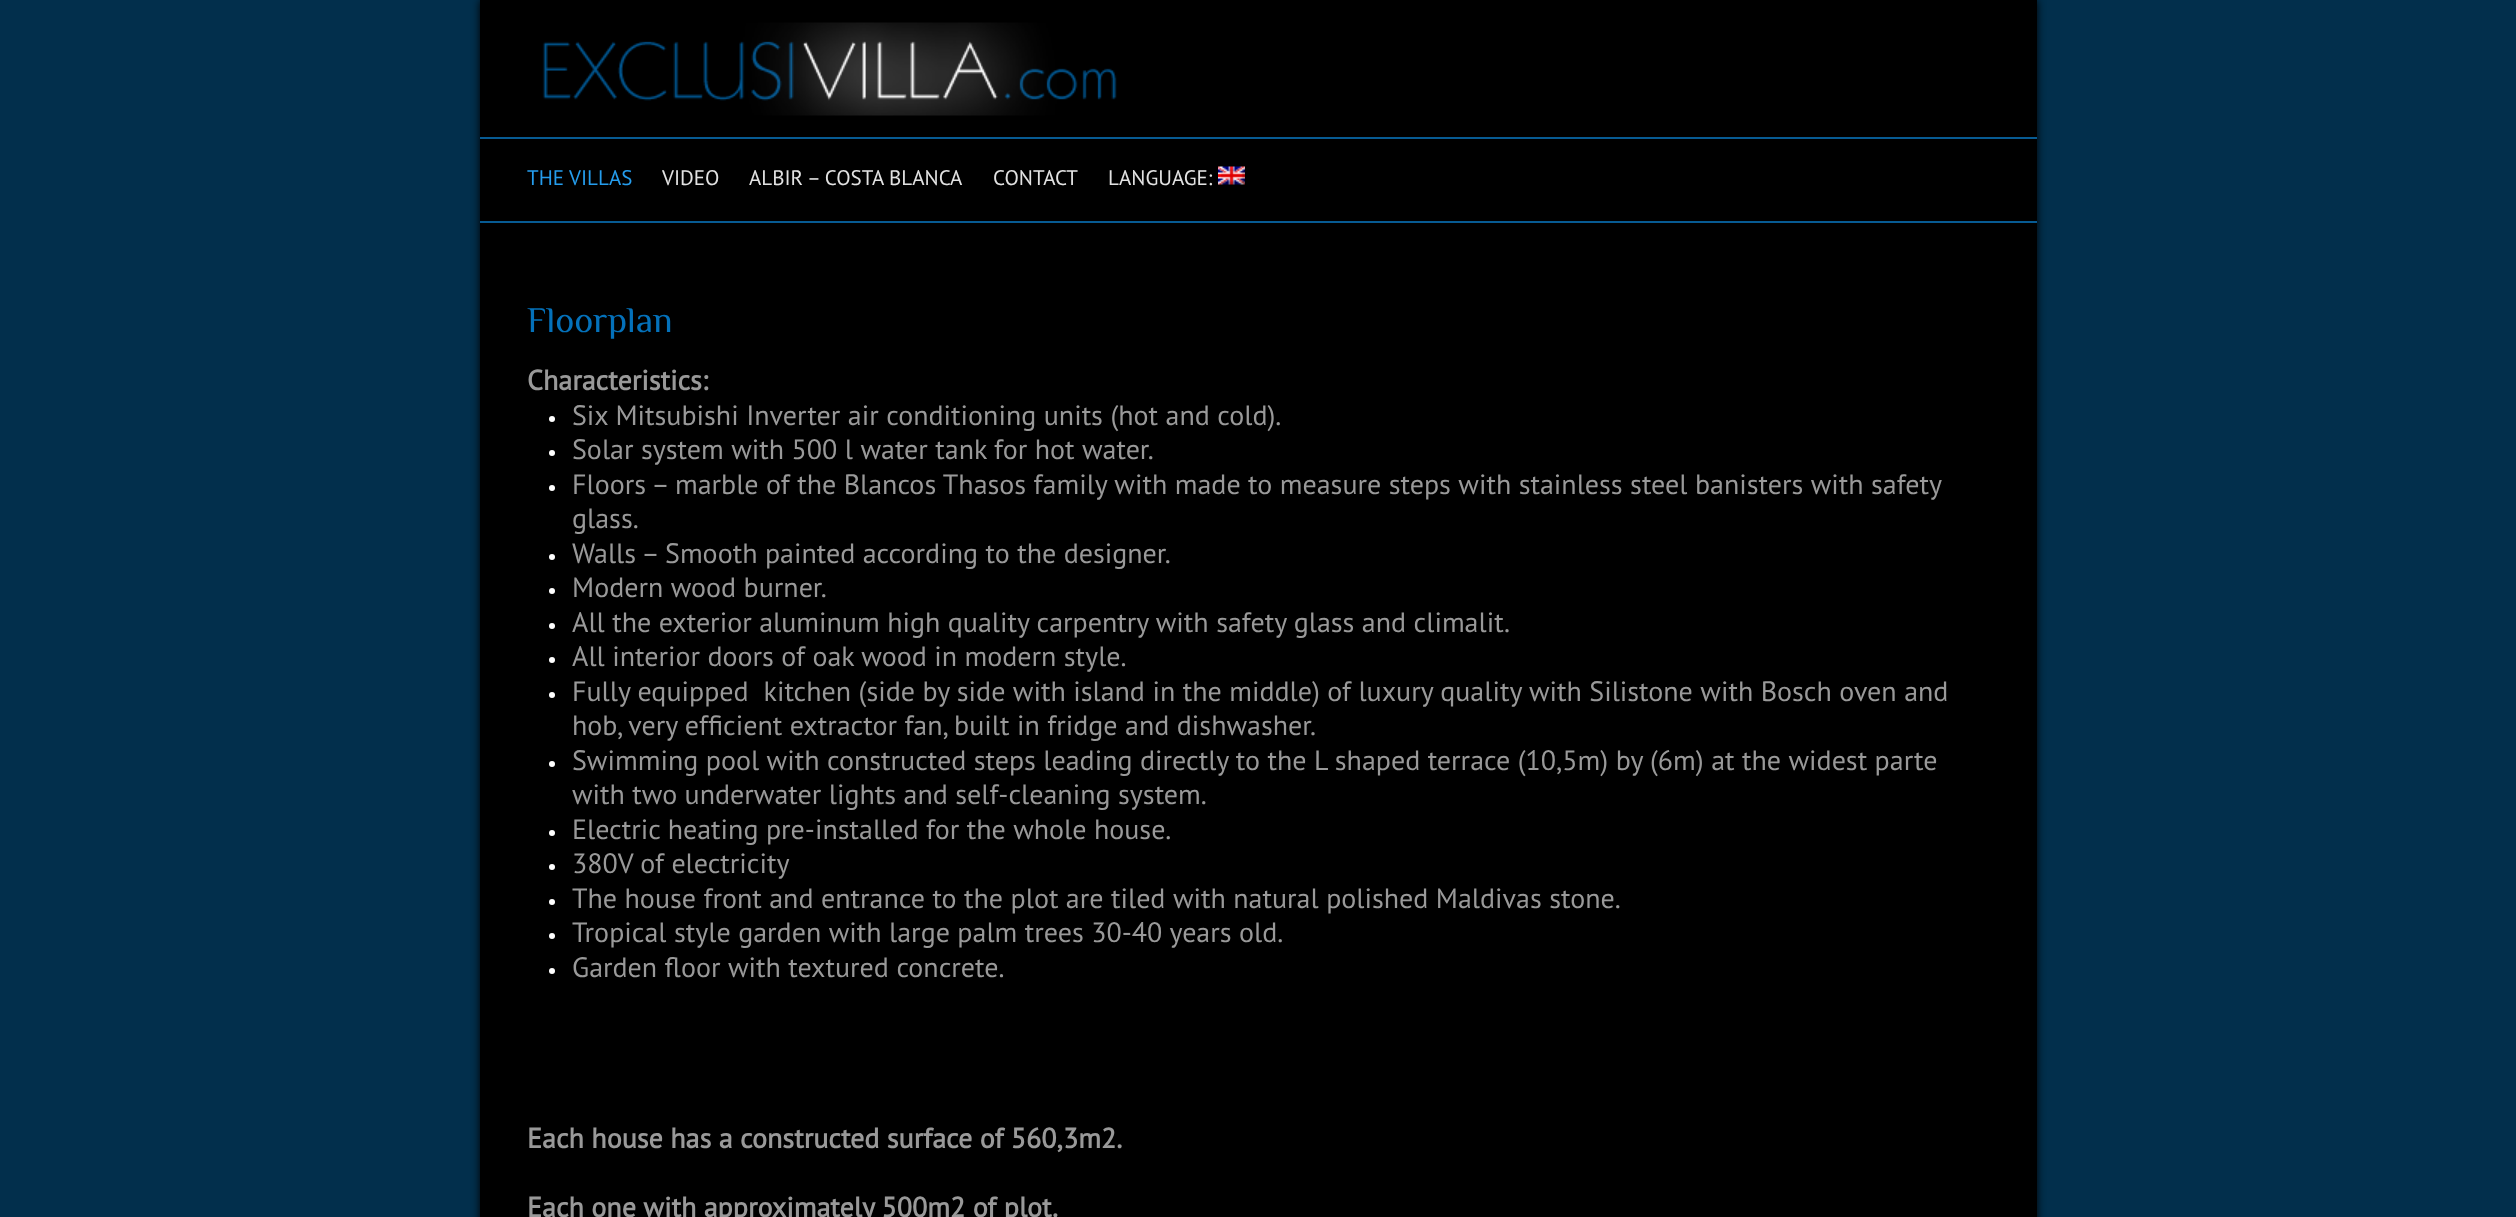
<?xml version="1.0" encoding="UTF-8"?>
<svg xmlns="http://www.w3.org/2000/svg" xmlns:xlink="http://www.w3.org/1999/xlink" width="2516" height="1217">
  <rect width="100%" height="100%" fill="#022f4c" />
  <rect x="480" width="1557" height="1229" fill="#000000" filter="blur(4px)" />
  <rect x="480" width="1557" height="1217" fill="#000000" />
  <image x="542" y="22" width="575" height="94" xlink:href="image1.png" />
  <rect x="480" y="137" width="1557" height="2" fill="#075b93" />
  <rect x="480" y="221" width="1557" height="2" fill="#075b93" />
  <image x="1218" y="166" width="27" height="19" xlink:href="image2.png" />
  <circle cx="552" cy="419" r="3" fill="#ffffff" />
  <circle cx="552" cy="453" r="3" fill="#ffffff" />
  <circle cx="552" cy="488" r="3" fill="#ffffff" />
  <circle cx="552" cy="557" r="3" fill="#ffffff" />
  <circle cx="552" cy="591" r="3" fill="#ffffff" />
  <circle cx="552" cy="626" r="3" fill="#ffffff" />
  <circle cx="552" cy="660" r="3" fill="#ffffff" />
  <circle cx="552" cy="695" r="3" fill="#ffffff" />
  <circle cx="552" cy="764" r="3" fill="#ffffff" />
  <circle cx="552" cy="833" r="3" fill="#ffffff" />
  <circle cx="552" cy="867" r="3" fill="#ffffff" />
  <circle cx="552" cy="902" r="3" fill="#ffffff" />
  <circle cx="552" cy="936" r="3" fill="#ffffff" />
  <circle cx="552" cy="971" r="3" fill="#ffffff" />
  <text x="527" y="185" style="font-family: PT Sans; font-size: 21px; fill: #259ded">THE VILLAS</text>
  <text x="662" y="185" style="font-family: PT Sans; font-size: 21px; fill: #e2e2e2">VIDEO</text>
  <text x="749" y="185" style="font-family: PT Sans; font-size: 21px; fill: #e2e2e2">ALBIR – COSTA BLANCA</text>
  <text x="993" y="185" style="font-family: PT Sans; font-size: 21px; fill: #e2e2e2">CONTACT</text>
  <text x="1108" y="185" style="font-family: PT Sans; font-size: 21px; fill: #e2e2e2">LANGUAGE:</text>
  <text x="527" y="332" style="font-family: Philosopher; font-size: 36px; fill: #0471ba">Floorplan</text>
  <text x="527" y="390" style="font-family: PT Sans; font-size: 28px; font-weight: bold; fill: #999999">Characteristics:</text>
  <text x="572" y="425" style="font-family: PT Sans; font-size: 28px; fill: #999999">Six Mitsubishi Inverter air conditioning units (hot and cold).</text>
  <text x="572" y="459" style="font-family: PT Sans; font-size: 28px; fill: #999999">Solar system with 500 l water tank for hot water.</text>
  <text x="572" y="494" style="font-family: PT Sans; font-size: 28px; fill: #999999">Floors – marble of the Blancos Thasos family with made to measure steps with stainless steel banisters with safety</text>
  <text x="572" y="528" style="font-family: PT Sans; font-size: 28px; fill: #999999">glass.</text>
  <text x="572" y="563" style="font-family: PT Sans; font-size: 28px; fill: #999999">Walls – Smooth painted according to the designer.</text>
  <text x="572" y="597" style="font-family: PT Sans; font-size: 28px; fill: #999999">Modern wood burner.</text>
  <text x="572" y="632" style="font-family: PT Sans; font-size: 28px; fill: #999999">All the exterior aluminum high quality carpentry with safety glass and climalit.</text>
  <text x="572" y="666" style="font-family: PT Sans; font-size: 28px; fill: #999999">All interior doors of oak wood in modern style.</text>
  <text x="572" y="701" style="font-family: PT Sans; font-size: 28px; fill: #999999" xml:space="preserve">Fully equipped  kitchen (side by side with island in the middle) of luxury quality with Silistone with Bosch oven and</text>
  <text x="572" y="735" style="font-family: PT Sans; font-size: 28px; fill: #999999">hob, very efficient extractor fan, built in fridge and dishwasher.</text>
  <text x="572" y="770" style="font-family: PT Sans; font-size: 28px; fill: #999999">Swimming pool with constructed steps leading directly to the L shaped terrace (10,5m) by (6m) at the widest parte</text>
  <text x="572" y="804" style="font-family: PT Sans; font-size: 28px; fill: #999999">with two underwater lights and self-cleaning system.</text>
  <text x="572" y="839" style="font-family: PT Sans; font-size: 28px; fill: #999999">Electric heating pre-installed for the whole house.</text>
  <text x="572" y="873" style="font-family: PT Sans; font-size: 28px; fill: #999999">380V of electricity</text>
  <text x="572" y="908" style="font-family: PT Sans; font-size: 28px; fill: #999999">The house front and entrance to the plot are tiled with natural polished Maldivas stone.</text>
  <text x="572" y="942" style="font-family: PT Sans; font-size: 28px; fill: #999999">Tropical style garden with large palm trees 30-40 years old.</text>
  <text x="572" y="977" style="font-family: PT Sans; font-size: 28px; fill: #999999">Garden floor with textured concrete.</text>
  <text x="527" y="1148" style="font-family: PT Sans; font-size: 28px; font-weight: bold; fill: #999999">Each house has a constructed surface of 560,3m2.</text>
  <text x="527" y="1217" style="font-family: PT Sans; font-size: 28px; font-weight: bold; fill: #999999">Each one with approximately 500m2 of plot.</text>
</svg>
